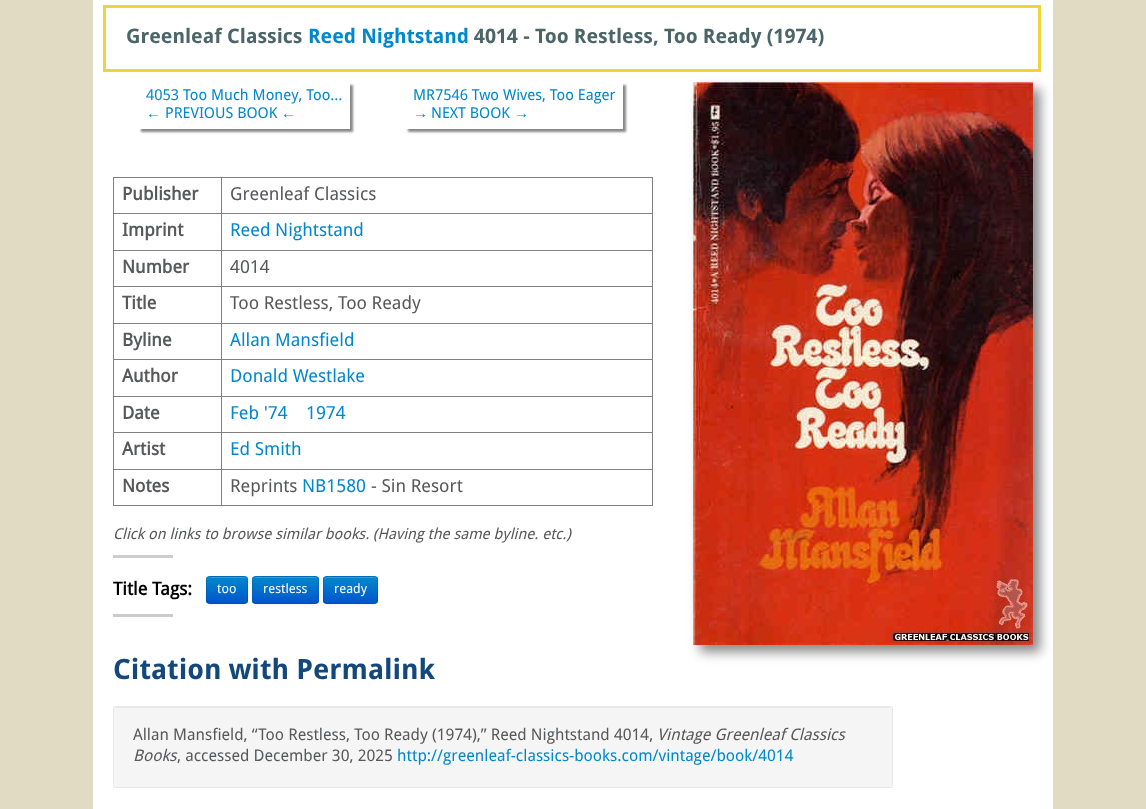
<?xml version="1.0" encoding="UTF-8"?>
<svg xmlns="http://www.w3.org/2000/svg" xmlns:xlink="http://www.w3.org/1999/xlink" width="1146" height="809">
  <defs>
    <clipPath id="clip1"><path d="M 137 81 h 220 v 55 h -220 z m 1 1 h 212 v 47 h -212 z" clip-rule="evenodd" /></clipPath>
    <clipPath id="clip2"><path d="M 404 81 h 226 v 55 h -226 z m 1 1 h 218 v 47 h -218 z" clip-rule="evenodd" /></clipPath>
    <clipPath id="clip3"><rect x="206" y="576" width="42" height="28" rx="4" /></clipPath>
    <linearGradient id="g1" gradientUnits="userSpaceOnUse" x1="227" y1="577" x2="227" y2="603"><stop offset="0" stop-color="#0088cc" /><stop offset="1" stop-color="#0055cc" /></linearGradient>
    <clipPath id="clip4"><rect x="252" y="576" width="67" height="28" rx="4" /></clipPath>
    <linearGradient id="g2" gradientUnits="userSpaceOnUse" x1="286" y1="577" x2="286" y2="603"><stop offset="0" stop-color="#0088cc" /><stop offset="1" stop-color="#0055cc" /></linearGradient>
    <clipPath id="clip5"><rect x="323" y="576" width="55" height="28" rx="4" /></clipPath>
    <linearGradient id="g3" gradientUnits="userSpaceOnUse" x1="351" y1="577" x2="351" y2="603"><stop offset="0" stop-color="#0088cc" /><stop offset="1" stop-color="#0055cc" /></linearGradient>
  </defs>
  <rect width="100%" height="100%" fill="#e2dbc4" />
  <rect x="93" width="960" height="809" fill="#ffffff" />
  <rect x="104.5" y="6.5" width="935" height="64" fill="none" stroke="#f0d539" stroke-width="3" />
  <g clip-path="url(#clip1)">
    <rect x="141" y="85" width="212" height="47" fill="#888888" filter="blur(1px)" />
  </g>
  <g clip-path="url(#clip2)">
    <rect x="408" y="85" width="218" height="47" fill="#888888" filter="blur(1px)" />
  </g>
  <rect x="113" y="177" width="540" height="1" fill="#808080" />
  <rect x="652" y="177" width="1" height="329" fill="#808080" />
  <rect x="113" y="505" width="540" height="1" fill="#808080" />
  <rect x="113" y="177" width="1" height="329" fill="#808080" />
  <rect x="221" y="213" width="432" height="1" fill="#808080" />
  <rect x="221" y="250" width="432" height="1" fill="#808080" />
  <rect x="221" y="286" width="432" height="1" fill="#808080" />
  <rect x="221" y="323" width="432" height="1" fill="#808080" />
  <rect x="221" y="359" width="432" height="1" fill="#808080" />
  <rect x="221" y="396" width="432" height="1" fill="#808080" />
  <rect x="221" y="432" width="432" height="1" fill="#808080" />
  <rect x="221" y="469" width="432" height="1" fill="#808080" />
  <rect x="221" y="469" width="1" height="37" fill="#808080" />
  <rect x="113" y="469" width="109" height="1" fill="#808080" />
  <rect x="221" y="432" width="1" height="38" fill="#808080" />
  <rect x="113" y="432" width="109" height="1" fill="#808080" />
  <rect x="221" y="396" width="1" height="37" fill="#808080" />
  <rect x="113" y="396" width="109" height="1" fill="#808080" />
  <rect x="221" y="359" width="1" height="38" fill="#808080" />
  <rect x="113" y="359" width="109" height="1" fill="#808080" />
  <rect x="221" y="323" width="1" height="37" fill="#808080" />
  <rect x="113" y="323" width="109" height="1" fill="#808080" />
  <rect x="221" y="286" width="1" height="38" fill="#808080" />
  <rect x="113" y="286" width="109" height="1" fill="#808080" />
  <rect x="221" y="250" width="1" height="37" fill="#808080" />
  <rect x="113" y="250" width="109" height="1" fill="#808080" />
  <rect x="221" y="213" width="1" height="38" fill="#808080" />
  <rect x="113" y="213" width="109" height="1" fill="#808080" />
  <rect x="221" y="177" width="1" height="37" fill="#808080" />
  <rect x="113" y="555" width="60" height="3" fill="#cccccc" />
  <rect x="206" y="577" width="42" height="28" rx="4" fill="#000000" fill-opacity="0.05" filter="blur(1px)" />
  <rect x="206" y="576" width="42" height="28" rx="4" fill="#0074cc" />
  <g clip-path="url(#clip3)">
    <rect x="206" y="577" width="42" height="26" fill="url(#g1)" />
  </g>
  <path d="M 210 578 h 34 c 2 0 3 1 3 3 c 0 -5 -5 -4 -9 -4 h -22 c -4 0 -9 -1 -9 4 c 0 -2 1 -3 3 -3 z" fill="#339fd6" />
  <path d="M 246.5 602.5 c -0.5 0.5 -1.5 1 -2.5 1 h -34 c -1 0 -2 -0.5 -2.5 -1" fill="none" stroke="#000000" stroke-opacity="0.25" />
  <path d="M 207.5 602.5 c -2 -2.5 -1 -10 -1 -12.5 c 0 -12 -2.5 -13.5 9 -13.5 h 23 c 11.5 0 9 1.5 9 13.5 c 0 2.5 1 10 -1 12.5" fill="none" stroke="#000000" stroke-opacity="0.1" />
  <rect x="252" y="577" width="67" height="28" rx="4" fill="#000000" fill-opacity="0.05" filter="blur(1px)" />
  <rect x="252" y="576" width="67" height="28" rx="4" fill="#0074cc" />
  <g clip-path="url(#clip4)">
    <rect x="252" y="577" width="67" height="26" fill="url(#g2)" />
  </g>
  <path d="M 256 578 h 59 c 2 0 3 1 3 3 c 0 -6 -8 -4 -13 -4 h -39 c -5 0 -13 -2 -13 4 c 0 -2 1 -3 3 -3 z" fill="#339fd6" />
  <path d="M 317.5 602.5 l -2 1 h -60 l -2 -1" fill="none" stroke="#000000" stroke-opacity="0.25" />
  <path d="M 253.5 602.5 c -2 -2.5 -1 -10 -1 -12.5 c 0 -15 -2 -13.5 13.5 -13.5 h 39 c 15.5 0 13.5 -1.5 13.5 13.5 c 0 2.5 1 10 -1 12.5" fill="none" stroke="#000000" stroke-opacity="0.1" />
  <rect x="323" y="577" width="55" height="28" rx="4" fill="#000000" fill-opacity="0.05" filter="blur(1px)" />
  <rect x="323" y="576" width="55" height="28" rx="4" fill="#0074cc" />
  <g clip-path="url(#clip5)">
    <rect x="323" y="577" width="55" height="26" fill="url(#g3)" />
  </g>
  <path d="M 327 578 h 47 c 2 0 3 1 3 3 c 0 -6 -6 -4 -11 -4 h -31 c -5 0 -11 -2 -11 4 c 0 -2 1 -3 3 -3 z" fill="#339fd6" />
  <path d="M 376.5 602.5 c -0.5 0.5 -1.5 1 -2.5 1 h -47 c -1 0 -2 -0.5 -2.5 -1" fill="none" stroke="#000000" stroke-opacity="0.25" />
  <path d="M 324.5 602.5 c -2 -2.5 -1 -10 -1 -12.5 c 0 -13.5 -2.5 -13.5 11.5 -13.5 h 31 c 14 0 11.5 0 11.5 13.5 c 0 2.5 1 10 -1 12.5" fill="none" stroke="#000000" stroke-opacity="0.1" />
  <rect x="113" y="614" width="60" height="3" fill="#cccccc" />
  <rect x="700" y="89" width="340" height="563" fill="#888888" filter="blur(6px)" />
  <image x="693" y="82" width="340" height="563" xlink:href="image1.png" />
  <rect x="113" y="706" width="780" height="82" rx="4" fill="#f5f5f5" />
  <path d="M 117 708 h 772 c 2 0 3 1 3 3 c 0 -2 -1 -4 -3 -4 h -772 c -2 0 -3 2 -3 4 c 0 -2 1 -3 3 -3 z" fill="#e9e9e9" />
  <rect x="113.5" y="706.5" width="779" height="81" fill="none" stroke="#000000" stroke-opacity="0.05" />
  <text x="126" y="43" style="font-family: 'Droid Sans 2'; font-size: 20px; font-weight: bold; fill: #4b6569">Greenleaf Classics</text>
  <text x="308" y="43" style="font-family: 'Droid Sans 2'; font-size: 20px; font-weight: bold; fill: #0088cc">Reed Nightstand</text>
  <text x="474" y="43" style="font-family: 'Droid Sans 2'; font-size: 20px; font-weight: bold; fill: #4b6569">4014 - Too Restless, Too Ready (1974)</text>
  <text x="146" y="100" style="font-family: Droid Sans; font-size: 15px; fill: #0088cc">4053 Too Much Money, Too…</text>
  <text x="146" y="118" style="font-family: Liberation Sans; font-size: 15px; fill: #0088cc">←</text>
  <text x="165" y="118" style="font-family: Droid Sans; font-size: 15px; fill: #0088cc">PREVIOUS BOOK</text>
  <text x="281" y="118" style="font-family: Liberation Sans; font-size: 15px; fill: #0088cc">←</text>
  <text x="413" y="100" style="font-family: Droid Sans; font-size: 15px; fill: #0088cc">MR7546 Two Wives, Too Eager</text>
  <text x="413" y="118" style="font-family: Liberation Sans; font-size: 15px; fill: #0088cc">→</text>
  <text x="431" y="118" style="font-family: Droid Sans; font-size: 15px; fill: #0088cc">NEXT BOOK</text>
  <text x="514" y="118" style="font-family: Liberation Sans; font-size: 15px; fill: #0088cc">→</text>
  <text x="122" y="200" style="font-family: Droid Sans; font-size: 18px; font-weight: bold; fill: #58595b">Publisher</text>
  <text x="230" y="200" style="font-family: Droid Sans; font-size: 18px; fill: #58595b">Greenleaf Classics</text>
  <text x="122" y="236" style="font-family: Droid Sans; font-size: 18px; font-weight: bold; fill: #58595b">Imprint</text>
  <text x="230" y="236" style="font-family: Droid Sans; font-size: 18px; fill: #0088cc">Reed Nightstand</text>
  <text x="122" y="273" style="font-family: Droid Sans; font-size: 18px; font-weight: bold; fill: #58595b">Number</text>
  <text x="230" y="273" style="font-family: Droid Sans; font-size: 18px; fill: #58595b">4014</text>
  <text x="122" y="309" style="font-family: Droid Sans; font-size: 18px; font-weight: bold; fill: #58595b">Title</text>
  <text x="230" y="309" style="font-family: Droid Sans; font-size: 18px; fill: #58595b">Too Restless, Too Ready</text>
  <text x="122" y="346" style="font-family: Droid Sans; font-size: 18px; font-weight: bold; fill: #58595b">Byline</text>
  <text x="230" y="346" style="font-family: Droid Sans; font-size: 18px; fill: #0088cc">Allan Mansfield</text>
  <text x="122" y="382" style="font-family: Droid Sans; font-size: 18px; font-weight: bold; fill: #58595b">Author</text>
  <text x="230" y="382" style="font-family: Droid Sans; font-size: 18px; fill: #0088cc">Donald Westlake</text>
  <text x="122" y="419" style="font-family: Droid Sans; font-size: 18px; font-weight: bold; fill: #58595b">Date</text>
  <text x="230" y="419" style="font-family: Droid Sans; font-size: 18px; fill: #0088cc">Feb '74</text>
  <text x="306" y="419" style="font-family: Droid Sans; font-size: 18px; fill: #0088cc">1974</text>
  <text x="122" y="455" style="font-family: Droid Sans; font-size: 18px; font-weight: bold; fill: #58595b">Artist</text>
  <text x="230" y="455" style="font-family: Droid Sans; font-size: 18px; fill: #0088cc">Ed Smith</text>
  <text x="122" y="492" style="font-family: Droid Sans; font-size: 18px; font-weight: bold; fill: #58595b">Notes</text>
  <text x="230" y="492" style="font-family: Droid Sans; font-size: 18px; fill: #58595b">Reprints</text>
  <text x="302" y="492" style="font-family: Droid Sans; font-size: 18px; fill: #0088cc">NB1580</text>
  <text x="371" y="492" style="font-family: Droid Sans; font-size: 18px; fill: #58595b">- Sin Resort</text>
  <text x="113" y="539" style="font-family: Droid Sans; font-size: 15px; font-style: italic; fill: #58595b">Click on links to browse similar books. (Having the same byline. etc.)</text>
  <text x="113" y="595" style="font-family: Droid Sans; font-size: 18px; font-weight: bold; fill: #000000">Title Tags:</text>
  <text x="217" y="593" style="font-family: Droid Sans; font-size: 13px; fill: #ffffff">too</text>
  <text x="263" y="593" style="font-family: Droid Sans; font-size: 13px; fill: #ffffff">restless</text>
  <text x="334" y="593" style="font-family: Droid Sans; font-size: 13px; fill: #ffffff">ready</text>
  <text x="113" y="679" style="font-family: 'Droid Sans 2'; font-size: 28px; font-weight: bold; fill: #13487d">Citation with Permalink</text>
  <text x="133" y="740" style="font-family: Droid Sans; font-size: 16px; fill: #58595b">Allan Mansfield, “Too Restless, Too Ready (1974),” Reed Nightstand 4014,</text>
  <text x="657" y="740" style="font-family: Droid Sans; font-size: 16px; font-style: italic; fill: #58595b">Vintage Greenleaf Classics</text>
  <text x="133" y="761" style="font-family: Droid Sans; font-size: 16px; font-style: italic; fill: #58595b">Books</text>
  <text x="177" y="761" style="font-family: Droid Sans; font-size: 16px; fill: #58595b">, accessed December 30, 2025</text>
  <text x="397" y="761" style="font-family: Droid Sans; font-size: 16px; fill: #0088cc">http://greenleaf-classics-books.com/vintage/book/4014</text>
</svg>
